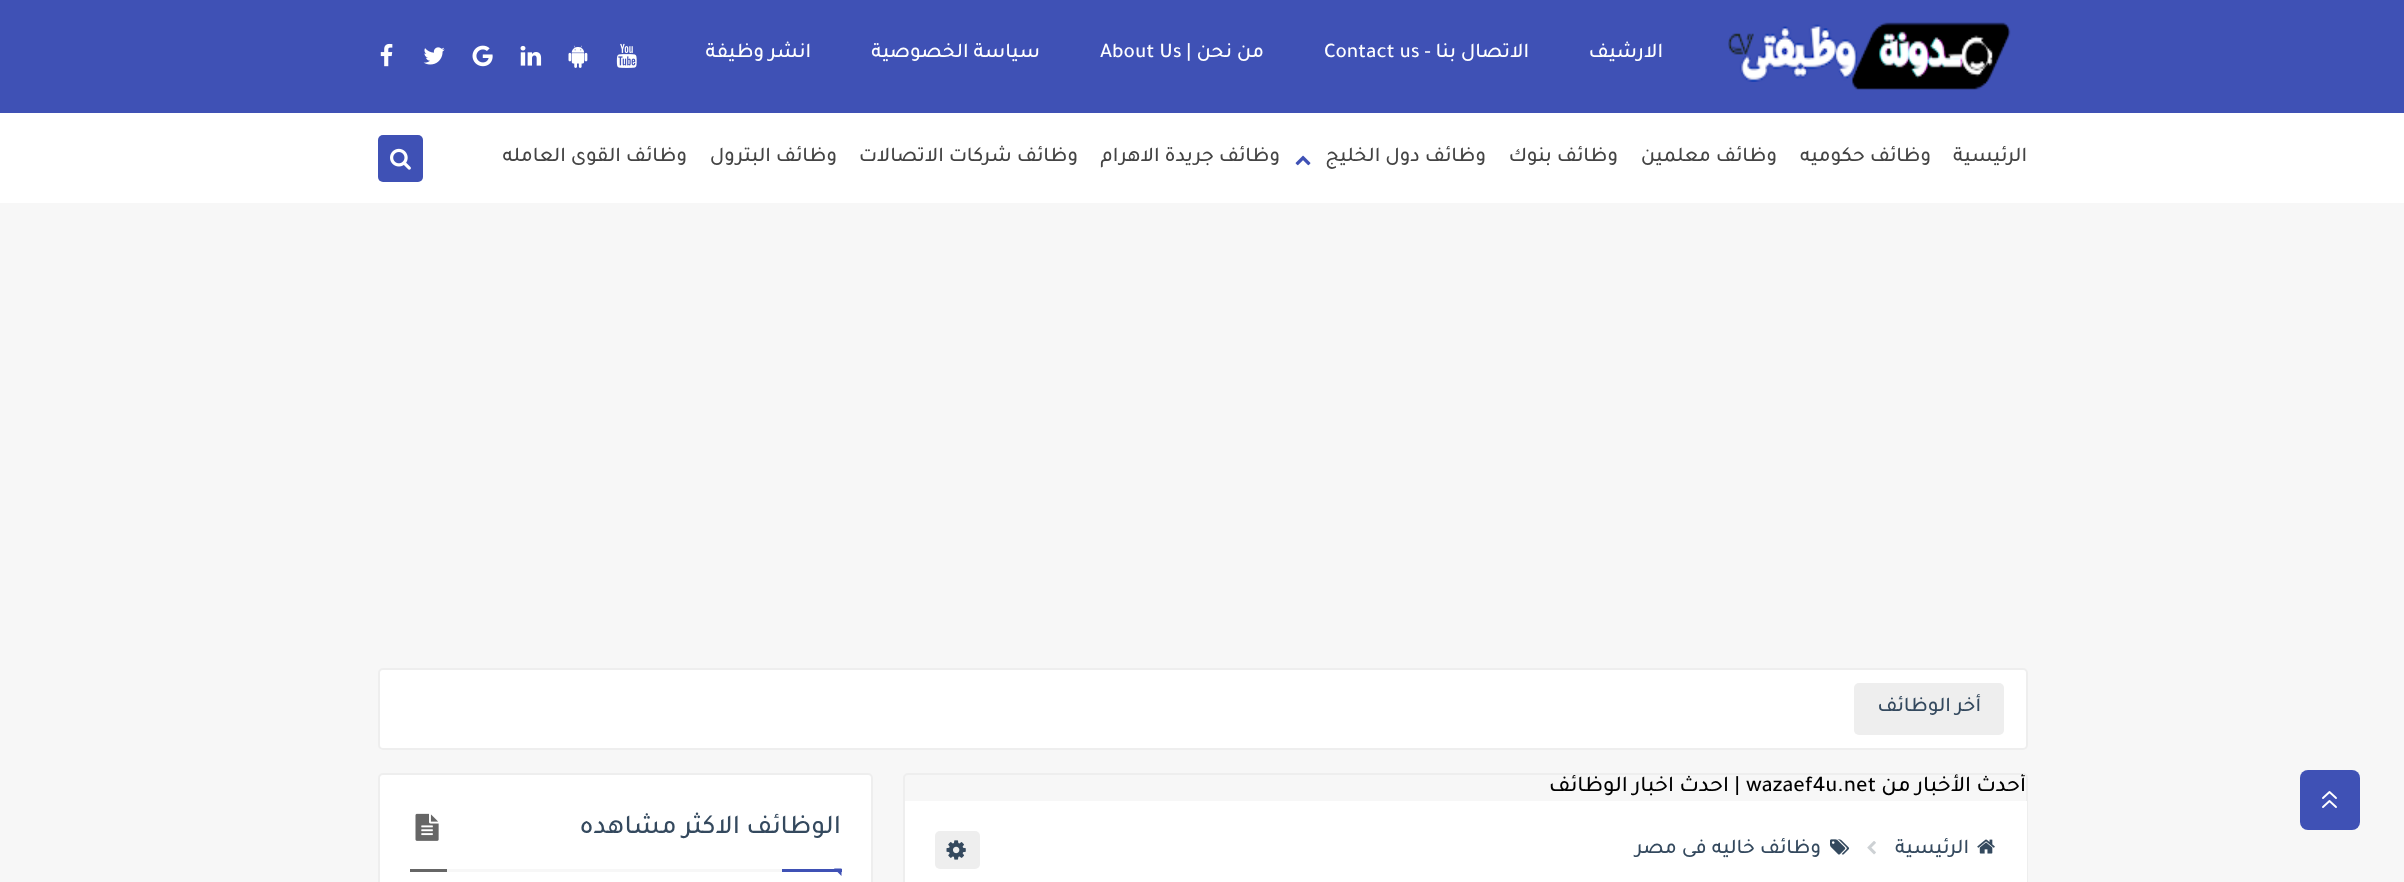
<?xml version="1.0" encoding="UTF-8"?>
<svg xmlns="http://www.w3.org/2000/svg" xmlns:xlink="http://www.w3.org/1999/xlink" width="2404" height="882">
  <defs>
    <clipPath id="clip1"><rect x="905" y="774" width="1122" height="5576" rx="3" /></clipPath>
  </defs>
  <rect width="100%" height="100%" fill="#f7f7f7" />
  <rect y="113" width="2404" height="90" fill="#ffffff" />
  <rect width="2404" height="113" fill="#3f51b5" />
  <image x="1728" y="22" width="283" height="68" xlink:href="image1.png" />
  <image x="616" y="43" width="21" height="25" xlink:href="image2.png" />
  <image x="568" y="45" width="20" height="23" xlink:href="image3.png" />
  <image x="520" y="45" width="22" height="21" xlink:href="image4.png" />
  <image x="472" y="45" width="21" height="22" xlink:href="image5.png" />
  <image x="423" y="47" width="22" height="18" xlink:href="image6.png" />
  <image x="380" y="43" width="13" height="24" xlink:href="image7.png" />
  <image x="1295" y="155" width="16" height="11" xlink:href="image8.png" />
  <rect x="378" y="135" width="45" height="47" rx="5" fill="#3f51b5" />
  <image x="390" y="148" width="21" height="22" xlink:href="image9.png" />
  <rect x="2300" y="770" width="60" height="60" rx="8" fill="#3f51b5" />
  <path d="M 2336 798 l -6.5 -6 l -6.5 6 m 13 9 l -6.5 -6 l -6.5 6" fill="none" stroke="#ffffff" stroke-width="1.9" stroke-linecap="round" stroke-linejoin="round" />
  <rect x="379" y="669" width="1648" height="80" rx="4" fill="#ffffff" stroke="#eeeeee" stroke-width="2" />
  <rect x="1854" y="683" width="150" height="52" rx="5" fill="#eeeeee" />
  <rect x="904" y="774" width="1123" height="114" rx="4" fill="none" stroke="#eeeeee" stroke-width="2" />
  <rect x="905" y="801" width="1122" height="81" fill="#ffffff" />
  <image x="1977" y="839" width="18" height="15" xlink:href="image10.png" />
  <image x="1867" y="841" width="9" height="14" xlink:href="image11.png" />
  <image x="1830" y="839" width="20" height="16" xlink:href="image12.png" />
  <rect x="935" y="831" width="45" height="38" rx="5" fill="#eeeeee" />
  <image x="946" y="840" width="20" height="20" xlink:href="image13.png" />
  <rect x="379" y="774" width="493" height="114" rx="4" fill="#ffffff" stroke="#eeeeee" stroke-width="2" />
  <rect x="447" y="869" width="335" height="3" fill="#f7f7f7" />
  <image x="415" y="813" width="24" height="28" xlink:href="image14.png" />
  <rect x="410" y="869" width="37" height="3" fill="#666666" />
  <path d="M 834 868.5 h 7.5 v 7.5 z" fill="#3f51b5" />
  <rect x="782" y="869" width="60" height="3" fill="#3f51b5" />
  <text x="1663" y="57" style="font-family: Tajawal; font-size: 21px; font-weight: 500; direction: rtl; fill: #ffffff">الارشيف</text>
  <text x="1529" y="57" style="font-family: Tajawal; font-size: 21px; font-weight: 500; direction: rtl; fill: #ffffff">الاتصال بنا -</text>
  <text x="1324" y="57" style="font-family: Tajawal; font-size: 21px; font-weight: 500; fill: #ffffff">Contact us</text>
  <text x="1264" y="57" style="font-family: Tajawal; font-size: 21px; font-weight: 500; direction: rtl; fill: #ffffff">من نحن |</text>
  <text x="1100" y="57" style="font-family: Tajawal; font-size: 21px; font-weight: 500; fill: #ffffff">About Us</text>
  <text x="1040" y="57" style="font-family: Tajawal; font-size: 21px; font-weight: 500; direction: rtl; fill: #ffffff">سياسة الخصوصية</text>
  <text x="811" y="57" style="font-family: Tajawal; font-size: 21px; font-weight: 500; direction: rtl; fill: #ffffff">انشر وظيفة</text>
  <text x="2027" y="161" style="font-family: Tajawal; font-size: 21px; font-weight: 500; direction: rtl; fill: #444444">الرئيسية</text>
  <text x="1931" y="161" style="font-family: Tajawal; font-size: 21px; font-weight: 500; direction: rtl; fill: #444444">وظائف حكوميه</text>
  <text x="1777" y="161" style="font-family: Tajawal; font-size: 21px; font-weight: 500; direction: rtl; fill: #444444">وظائف معلمين</text>
  <text x="1618" y="161" style="font-family: Tajawal; font-size: 21px; font-weight: 500; direction: rtl; fill: #444444">وظائف بنوك</text>
  <text x="1486" y="161" style="font-family: Tajawal; font-size: 21px; font-weight: 500; direction: rtl; fill: #444444">وظائف دول الخليج</text>
  <text x="1280" y="161" style="font-family: Tajawal; font-size: 21px; font-weight: 500; direction: rtl; fill: #444444">وظائف جريدة الاهرام</text>
  <text x="1078" y="161" style="font-family: Tajawal; font-size: 21px; font-weight: 500; direction: rtl; fill: #444444">وظائف شركات الاتصالات</text>
  <text x="837" y="161" style="font-family: Tajawal; font-size: 21px; font-weight: 500; direction: rtl; fill: #444444">وظائف البترول</text>
  <text x="687" y="161" style="font-family: Tajawal; font-size: 21px; font-weight: 500; direction: rtl; fill: #444444">وظائف القوى العامله</text>
  <text x="1981" y="711" style="font-family: Tajawal; font-size: 21px; font-weight: 500; direction: rtl; fill: #34495e">أخر الوظائف</text>
  <g clip-path="url(#clip1)">
    <text x="2026" y="791" style="font-family: Tajawal; font-size: 22.5px; font-weight: 500; direction: rtl; fill: #000000">أحدث الأخبار من</text>
  </g>
  <text x="1746" y="791" style="font-family: Tajawal; font-size: 22.5px; font-weight: 500; fill: #000000">wazaef4u.net</text>
  <text x="1740" y="791" style="font-family: Tajawal; font-size: 22.5px; font-weight: 500; direction: rtl; fill: #000000">| احدث اخبار الوظائف</text>
  <text x="1969" y="853" style="font-family: Tajawal; font-size: 21px; font-weight: 500; direction: rtl; fill: #34495e">الرئيسية</text>
  <text x="1821" y="853" style="font-family: Tajawal; font-size: 21px; font-weight: 500; direction: rtl; fill: #34495e">وظائف خاليه فى مصر</text>
  <text x="841" y="833" style="font-family: Tajawal; font-size: 27px; font-weight: 500; direction: rtl; fill: #34495e">الوظائف الاكثر مشاهده</text>
</svg>
